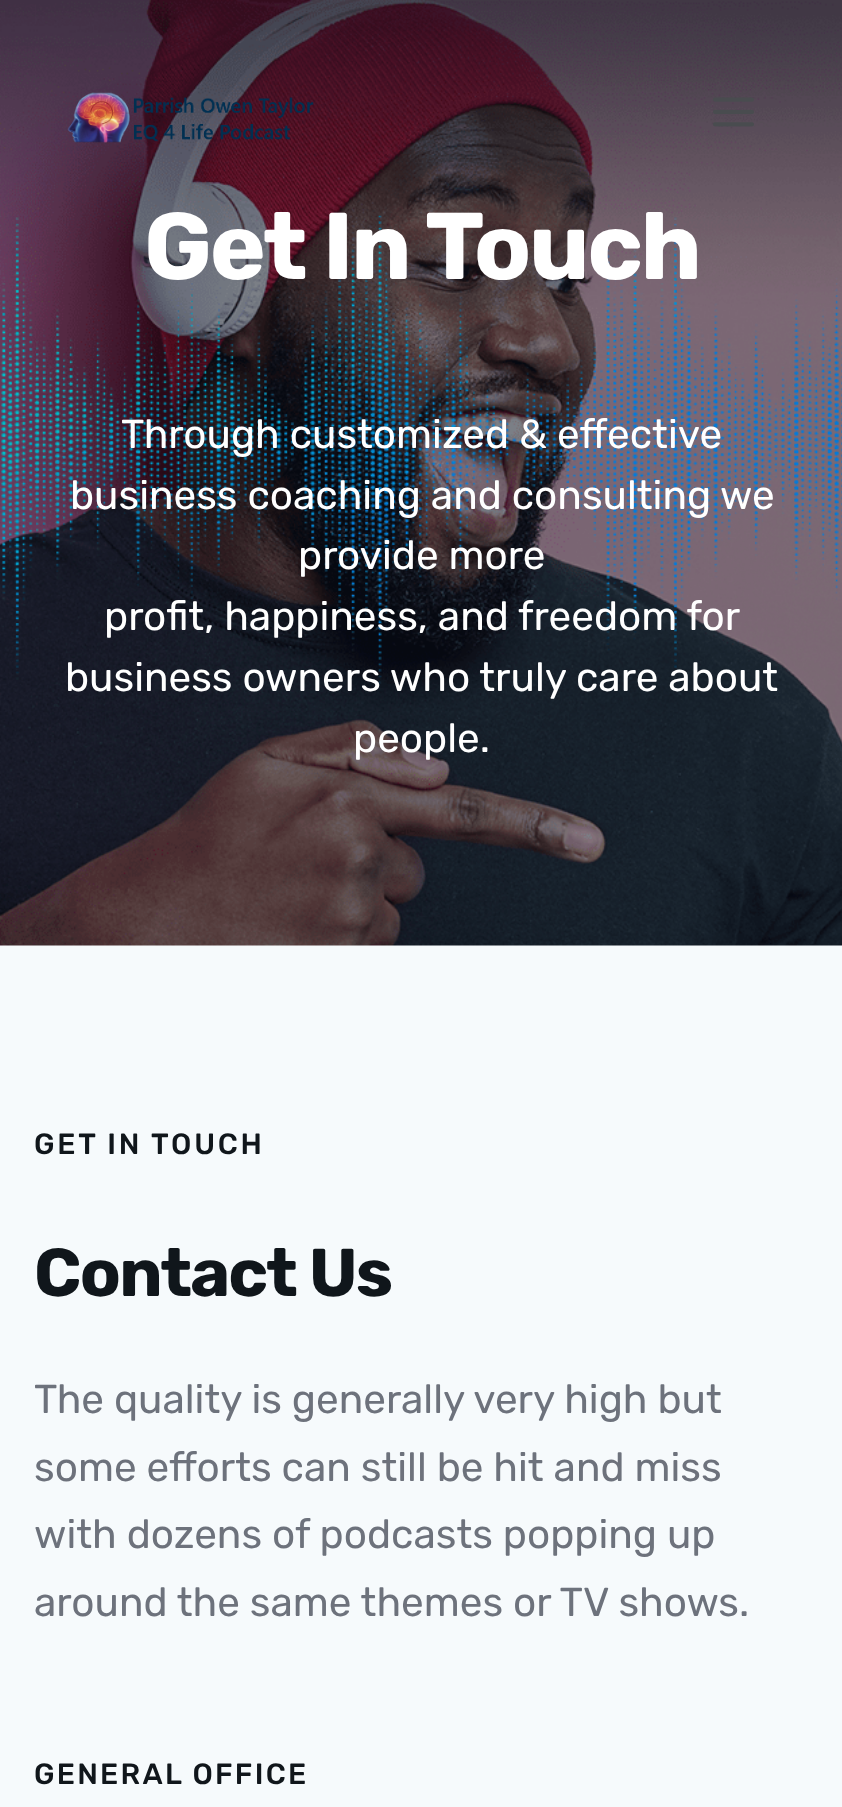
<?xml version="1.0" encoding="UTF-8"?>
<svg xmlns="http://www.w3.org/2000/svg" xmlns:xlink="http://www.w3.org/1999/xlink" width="842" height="1807">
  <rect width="100%" height="100%" fill="#f6fafc" />
  <image x="0" y="0" width="842" height="946" xlink:href="image3.png" />
  <image x="67" y="92" width="247" height="51" xlink:href="image1.png" />
  <image x="713" y="97" width="41" height="30" xlink:href="image2.png" />
  <text x="144" y="279" style="font-family: Rubik; font-size: 94.5px; font-weight: bold; letter-spacing: -2.4px; fill: #ffffff">Get In Touch</text>
  <text x="121" y="448" style="font-family: Rubik; font-size: 40.5px; fill: #ffffff">Through customized &amp; effective</text>
  <text x="70" y="509" style="font-family: Rubik; font-size: 40.5px; fill: #ffffff">business coaching and consulting we</text>
  <text x="298" y="569" style="font-family: Rubik; font-size: 40.5px; fill: #ffffff">provide more</text>
  <text x="104" y="630" style="font-family: Rubik; font-size: 40.5px; fill: #ffffff">profit, happiness, and freedom for</text>
  <text x="65" y="691" style="font-family: Rubik; font-size: 40.5px; fill: #ffffff">business owners who truly care about</text>
  <text x="353" y="752" style="font-family: Rubik; font-size: 40.5px; fill: #ffffff">people.</text>
  <text x="34" y="1154" style="font-family: Rubik; font-size: 29.25px; font-weight: 500; letter-spacing: 2.75px; fill: #10161b">GET IN TOUCH</text>
  <text x="34" y="1296" style="font-family: Rubik; font-size: 67.5px; font-weight: bold; letter-spacing: -1.75px; fill: #10161b">Contact Us</text>
  <text x="34" y="1413" style="font-family: Rubik; font-size: 40.5px; fill: #6d727c">The quality is generally very high but</text>
  <text x="34" y="1481" style="font-family: Rubik; font-size: 40.5px; fill: #6d727c">some efforts can still be hit and miss</text>
  <text x="34" y="1548" style="font-family: Rubik; font-size: 40.5px; fill: #6d727c">with dozens of podcasts popping up</text>
  <text x="34" y="1616" style="font-family: Rubik; font-size: 40.5px; fill: #6d727c">around the same themes or TV shows.</text>
  <text x="34" y="1784" style="font-family: Rubik; font-size: 29.25px; font-weight: 500; letter-spacing: 2.25px; fill: #10161b">GENERAL OFFICE</text>
</svg>
